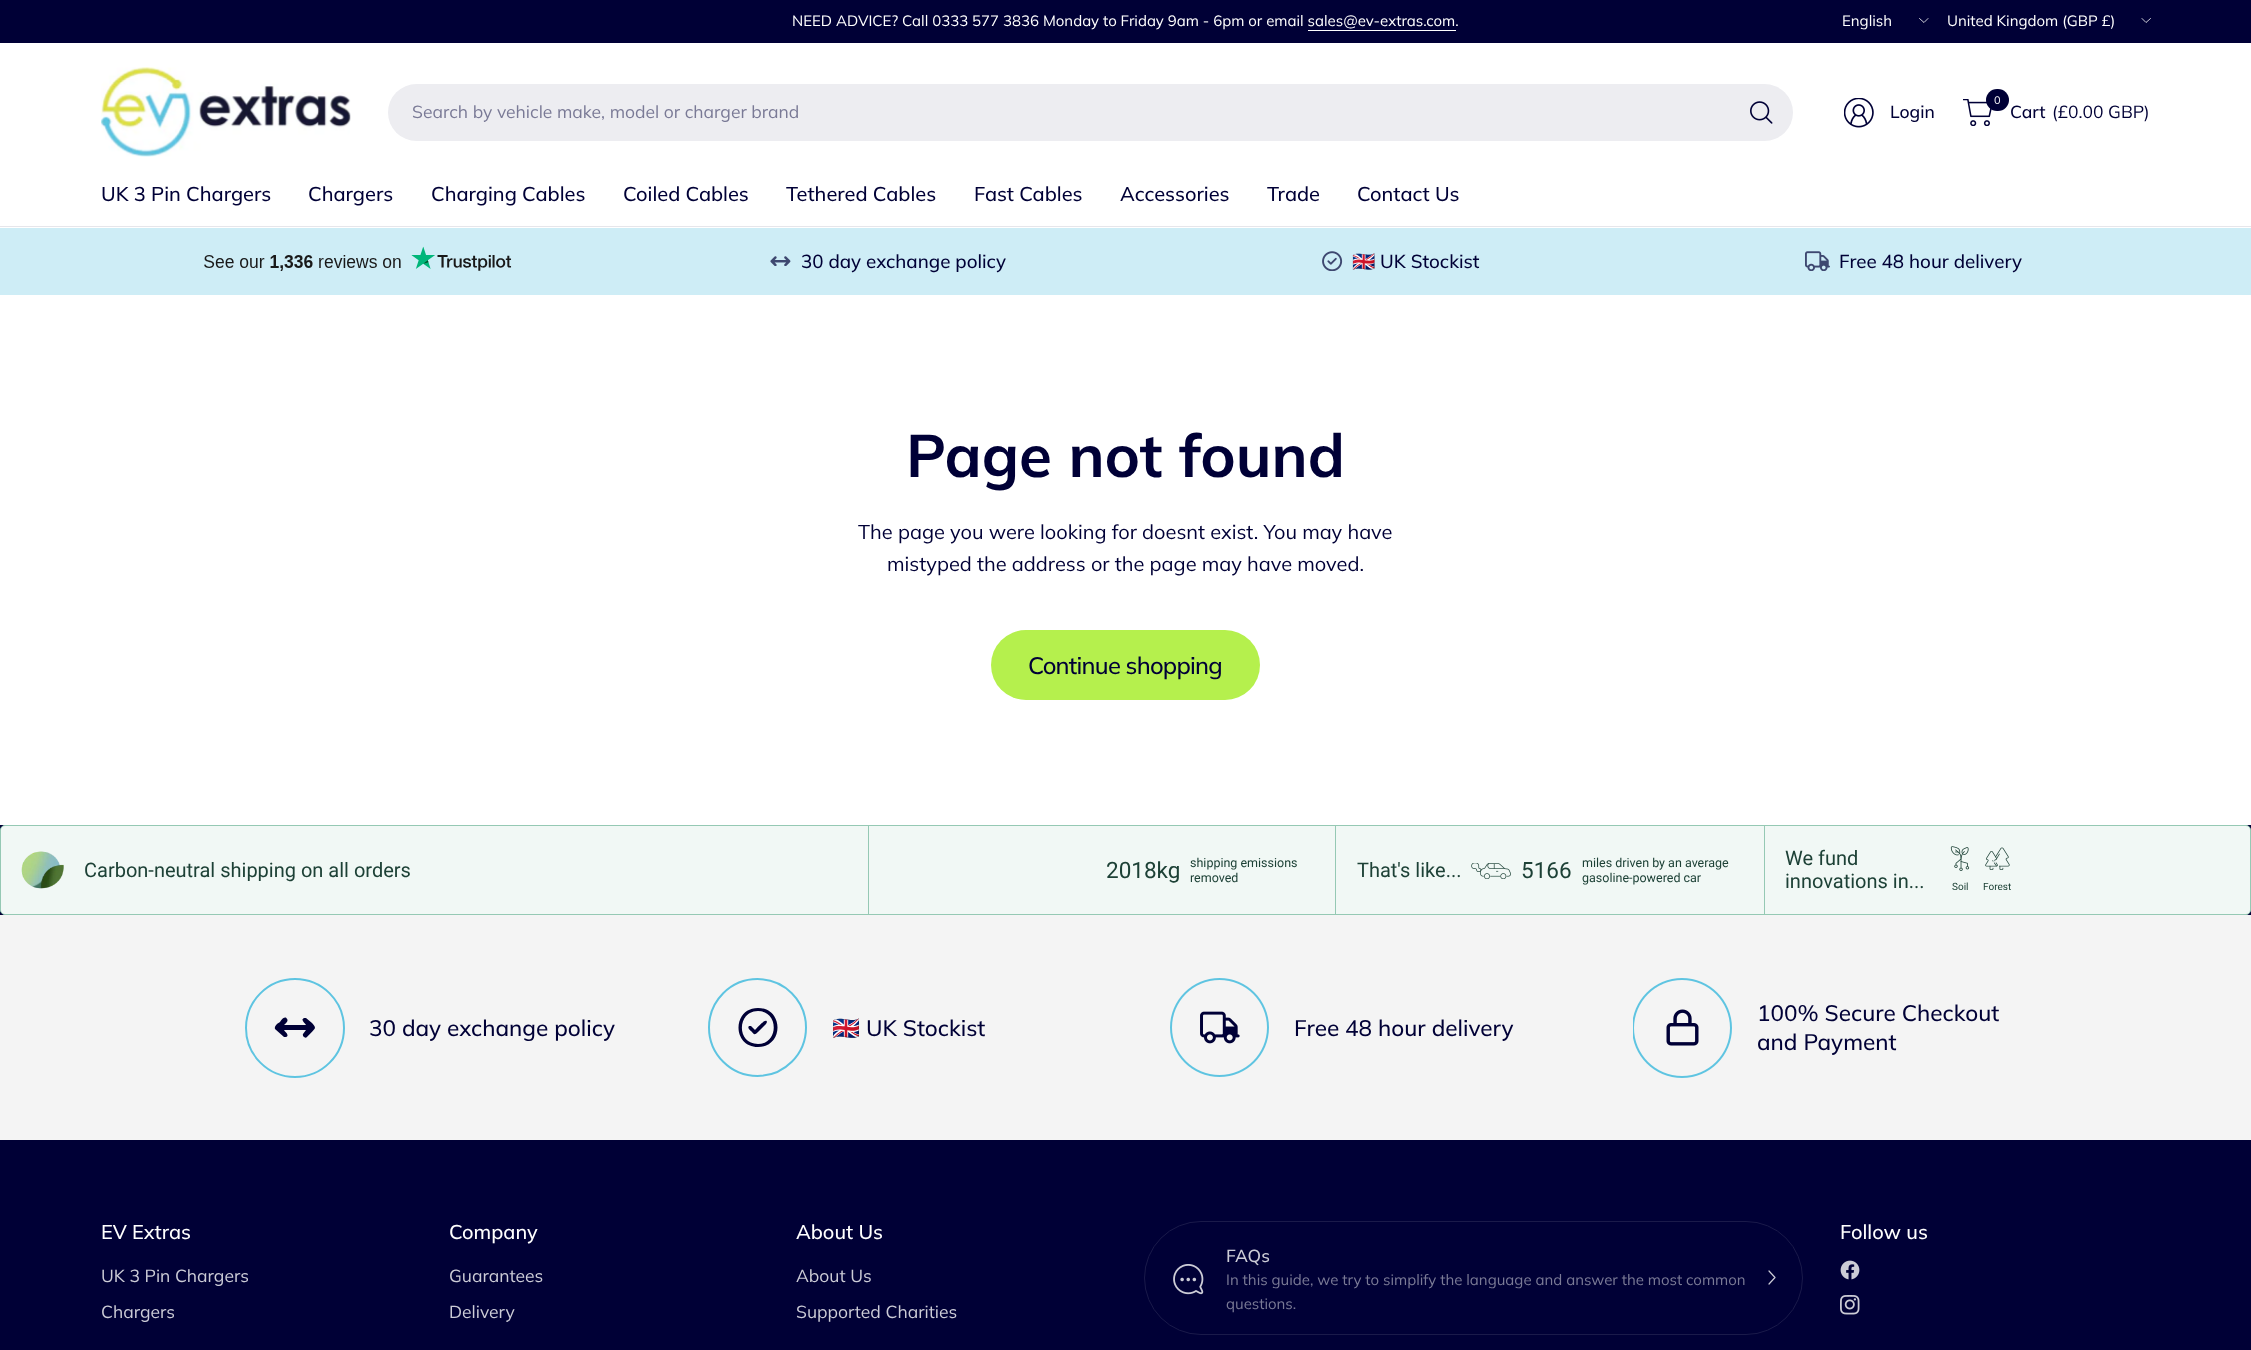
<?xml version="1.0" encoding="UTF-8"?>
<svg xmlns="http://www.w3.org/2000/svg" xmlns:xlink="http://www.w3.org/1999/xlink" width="2251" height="1350">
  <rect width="100%" height="100%" fill="#ffffff" />
  <rect width="2251" height="43" fill="#000036" />
  <rect x="1308" y="30" width="148" height="1" fill="#ffffff" />
  <path d="M 1928 18.5 l -4 4 l -4.5 -4" fill="none" stroke="#ffffff" stroke-width="0.8" stroke-linecap="round" stroke-linejoin="round" />
  <path d="M 2150.5 18.5 l -4.5 4 l -4 -4" fill="none" stroke="#ffffff" stroke-width="0.8" stroke-linecap="round" stroke-linejoin="round" />
  <image x="101" y="67" width="250" height="90" xlink:href="image1.png" />
  <rect x="388" y="84" width="1405" height="57" rx="28.5" fill="#ededf1" />
  <image x="1750" y="101" width="23" height="23" xlink:href="image2.png" />
  <image x="1844" y="98" width="30" height="30" xlink:href="image3.png" />
  <image x="1963" y="99" width="29" height="27" xlink:href="image4.png" />
  <rect x="1986" y="89" width="23" height="22" rx="11" fill="#000036" />
  <rect y="226" width="2251" height="1" fill="#e6e6eb" />
  <rect y="228" width="2251" height="67" fill="#ceedf6" />
  <image x="204" y="246" width="308" height="25" xlink:href="image5.png" />
  <image x="770" y="256" width="21" height="10" xlink:href="image6.png" />
  <image x="1322" y="251" width="21" height="20" xlink:href="image7.png" />
  <image x="1805" y="251" width="25" height="20" xlink:href="image8.png" />
  <rect x="991" y="630" width="269" height="70" rx="35" fill="#b5f04d" />
  <rect y="825" width="2251" height="90" fill="#000036" />
  <rect x="0.5" y="825.5" width="2250" height="89" rx="4.5" fill="#f1f8f5" stroke="#95c9b4" />
  <rect x="868" y="826" width="1" height="88" fill="#95c9b4" />
  <image x="21" y="851" width="43" height="38" xlink:href="image9.png" />
  <rect x="1335" y="826" width="1" height="88" fill="#95c9b4" />
  <rect x="1764" y="826" width="1" height="88" fill="#95c9b4" />
  <image x="1471" y="863" width="40" height="16" xlink:href="image10.png" />
  <image x="1950" y="846" width="20" height="25" xlink:href="image11.png" />
  <image x="1985" y="847" width="25" height="23" xlink:href="image12.png" />
  <rect y="915" width="2251" height="225" fill="#f4f4f4" />
  <circle cx="295" cy="1028" r="49" fill="none" stroke="#5ec4e1" stroke-width="2" />
  <path d="M 307 1037 c -2 2 -5 -1 -4 -3 l 3 -4 h -22 c 1 2 6 5 2 7 h -2 l -9 -8 c -1 -3 3 -6 5 -7 c 1 -2 5 -7 7 -3 c 2 2 -2 5 -3 6 h 22 c -1 -2 -6 -5 -2 -7 h 2 l 6 5 c 1 1 3 3 3 5 c -1 2 -6 7 -8 9 z" fill="#000036" />
  <circle cx="757.5" cy="1027.5" r="48.5" fill="none" stroke="#5ec4e1" stroke-width="2" />
  <path d="M 758 1011 c -21 0 -22 33 0 33 c 21 0 21 -33 0 -33 z m 0 36 c -26 0 -26 -39 0 -39 c 26 0 26 39 0 39 z m 8 -23 l -8 8 c -4 4 -4 2 -7 -1 c -1 -1 -4 -3 -2 -5 h 2 l 4 4 c 1 -1 11 -13 12 -8 z" fill="#000036" />
  <image x="1170" y="978" width="99" height="99" xlink:href="image13.png" />
  <image x="1633" y="978" width="99" height="100" xlink:href="image14.png" />
  <rect y="1140" width="2251" height="210" fill="#000036" />
  <image x="1840" y="1260" width="20" height="20" xlink:href="image15.png" />
  <image x="1840" y="1295" width="20" height="20" xlink:href="image16.png" />
  <rect x="1144.5" y="1221.5" width="658" height="113" rx="56.5" fill="none" stroke="#1a1a4a" />
  <image x="1173" y="1264" width="31" height="31" xlink:href="image17.png" />
  <path d="M 1769 1271 l 6 6.5 l -6 6.5" fill="none" stroke="#ccccd7" stroke-width="1.2" stroke-linecap="round" stroke-linejoin="round" />
  <text x="792" y="26" style="font-family: Muli; font-size: 15px; fill: #ffffff">NEED ADVICE? Call 0333 577 3836 Monday to Friday 9am - 6pm or email sales@ev-extras.com.</text>
  <text x="1842" y="26" style="font-family: Muli; font-size: 15px; fill: #ffffff">English</text>
  <text x="1947" y="26" style="font-family: Muli; font-size: 15px; fill: #ffffff">United Kingdom (GBP £)</text>
  <text x="412" y="118" style="font-family: Muli; font-size: 17.5px; fill: #7a7a96">Search by vehicle make, model or charger brand</text>
  <text x="1890" y="118" style="font-family: Muli; font-size: 17.5px; font-weight: 500; fill: #000036">Login</text>
  <text x="1994" y="104" style="font-family: Muli; font-size: 11px; fill: #ffffff">0</text>
  <text x="2010" y="118" style="font-family: Muli; font-size: 17.5px; font-weight: 500; fill: #000036">Cart</text>
  <text x="2052" y="118" style="font-family: Muli; font-size: 17.5px; fill: #000036">(£0.00 GBP)</text>
  <text x="101" y="201" style="font-family: Muli; font-size: 20px; font-weight: 500; fill: #000036">UK 3 Pin Chargers</text>
  <text x="308" y="201" style="font-family: Muli; font-size: 20px; font-weight: 500; fill: #000036">Chargers</text>
  <text x="431" y="201" style="font-family: Muli; font-size: 20px; font-weight: 500; fill: #000036">Charging Cables</text>
  <text x="623" y="201" style="font-family: Muli; font-size: 20px; font-weight: 500; fill: #000036">Coiled Cables</text>
  <text x="786" y="201" style="font-family: Muli; font-size: 20px; font-weight: 500; fill: #000036">Tethered Cables</text>
  <text x="974" y="201" style="font-family: Muli; font-size: 20px; font-weight: 500; fill: #000036">Fast Cables</text>
  <text x="1120" y="201" style="font-family: Muli; font-size: 20px; font-weight: 500; fill: #000036">Accessories</text>
  <text x="1267" y="201" style="font-family: Muli; font-size: 20px; font-weight: 500; fill: #000036">Trade</text>
  <text x="1357" y="201" style="font-family: Muli; font-size: 20px; font-weight: 500; fill: #000036">Contact Us</text>
  <text x="801" y="268" style="font-family: Muli; font-size: 18.75px; font-weight: 500; fill: #000036">30 day exchange policy</text>
  <text x="1352" y="268" style="font-family: Noto Color Emoji; font-size: 18.75px; fill: #000036">🇬🇧</text>
  <text x="1380" y="268" style="font-family: Muli; font-size: 18.75px; font-weight: 500; fill: #000036">UK Stockist</text>
  <text x="1839" y="268" style="font-family: Muli; font-size: 18.75px; font-weight: 500; fill: #000036">Free 48 hour delivery</text>
  <text x="906" y="477" style="font-family: Muli; font-size: 60px; font-weight: bold; fill: #000036">Page not found</text>
  <text x="858" y="539" style="font-family: Muli; font-size: 20px; fill: #000036">The page you were looking for doesnt exist. You may have</text>
  <text x="887" y="571" style="font-family: Muli; font-size: 20px; fill: #000036">mistyped the address or the page may have moved.</text>
  <text x="1028" y="674" style="font-family: Muli; font-size: 23.75px; font-weight: 500; letter-spacing: -0.75px; fill: #000036">Continue shopping</text>
  <text x="84" y="877" style="font-family: Roboto; font-size: 20px; fill: #1d4136">Carbon-neutral shipping on all orders</text>
  <text x="1106" y="878" style="font-family: Roboto; font-size: 22.5px; fill: #1d4136">2018kg</text>
  <text x="1190" y="867" style="font-family: Roboto; font-size: 12.5px; fill: #1d4136">shipping emissions</text>
  <text x="1190" y="882" style="font-family: Roboto; font-size: 12.5px; fill: #1d4136">removed</text>
  <text x="1357" y="877" style="font-family: Roboto; font-size: 20px; fill: #1d4136">That's like...</text>
  <text x="1521" y="878" style="font-family: Roboto; font-size: 22.5px; fill: #1d4136">5166</text>
  <text x="1582" y="867" style="font-family: Roboto; font-size: 12.5px; fill: #1d4136">miles driven by an average</text>
  <text x="1582" y="882" style="font-family: Roboto; font-size: 12.5px; fill: #1d4136">gasoline-powered car</text>
  <text x="1785" y="865" style="font-family: Roboto; font-size: 20px; fill: #1d4136">We fund</text>
  <text x="1785" y="888" style="font-family: Roboto; font-size: 20px; fill: #1d4136">innovations in...</text>
  <text x="1952" y="890" style="font-family: Roboto; font-size: 10px; fill: #1d4136">Soil</text>
  <text x="1983" y="890" style="font-family: Roboto; font-size: 10px; fill: #1d4136">Forest</text>
  <text x="369" y="1036" style="font-family: Muli; font-size: 22.5px; font-weight: 500; fill: #000036">30 day exchange policy</text>
  <text x="832" y="1036" style="font-family: Noto Color Emoji; font-size: 22.5px; fill: #000036">🇬🇧</text>
  <text x="866" y="1036" style="font-family: Muli; font-size: 22.5px; font-weight: 500; fill: #000036">UK Stockist</text>
  <text x="1294" y="1036" style="font-family: Muli; font-size: 22.5px; font-weight: 500; fill: #000036">Free 48 hour delivery</text>
  <text x="1757" y="1021" style="font-family: Muli; font-size: 22.5px; font-weight: 500; fill: #000036">100% Secure Checkout</text>
  <text x="1757" y="1050" style="font-family: Muli; font-size: 22.5px; font-weight: 500; fill: #000036">and Payment</text>
  <text x="101" y="1239" style="font-family: Muli; font-size: 20px; font-weight: 500; fill: #ffffff">EV Extras</text>
  <text x="101" y="1282" style="font-family: Muli; font-size: 17.5px; fill: #ccccd7">UK 3 Pin Chargers</text>
  <text x="101" y="1318" style="font-family: Muli; font-size: 17.5px; fill: #ccccd7">Chargers</text>
  <text x="449" y="1239" style="font-family: Muli; font-size: 20px; font-weight: 500; fill: #ffffff">Company</text>
  <text x="449" y="1282" style="font-family: Muli; font-size: 17.5px; fill: #ccccd7">Guarantees</text>
  <text x="449" y="1318" style="font-family: Muli; font-size: 17.5px; fill: #ccccd7">Delivery</text>
  <text x="796" y="1239" style="font-family: Muli; font-size: 20px; font-weight: 500; fill: #ffffff">About Us</text>
  <text x="796" y="1282" style="font-family: Muli; font-size: 17.5px; fill: #ccccd7">About Us</text>
  <text x="796" y="1318" style="font-family: Muli; font-size: 17.5px; fill: #ccccd7">Supported Charities</text>
  <text x="1840" y="1239" style="font-family: Muli; font-size: 20px; font-weight: 500; fill: #ffffff">Follow us</text>
  <text x="1226" y="1262" style="font-family: Muli; font-size: 17.5px; font-weight: 500; fill: #ccccd7">FAQs</text>
  <text x="1226" y="1285" style="font-family: Muli; font-size: 15px; fill: #7a7a96">In this guide, we try to simplify the language and answer the most common</text>
  <text x="1226" y="1309" style="font-family: Muli; font-size: 15px; fill: #7a7a96">questions.</text>
</svg>
